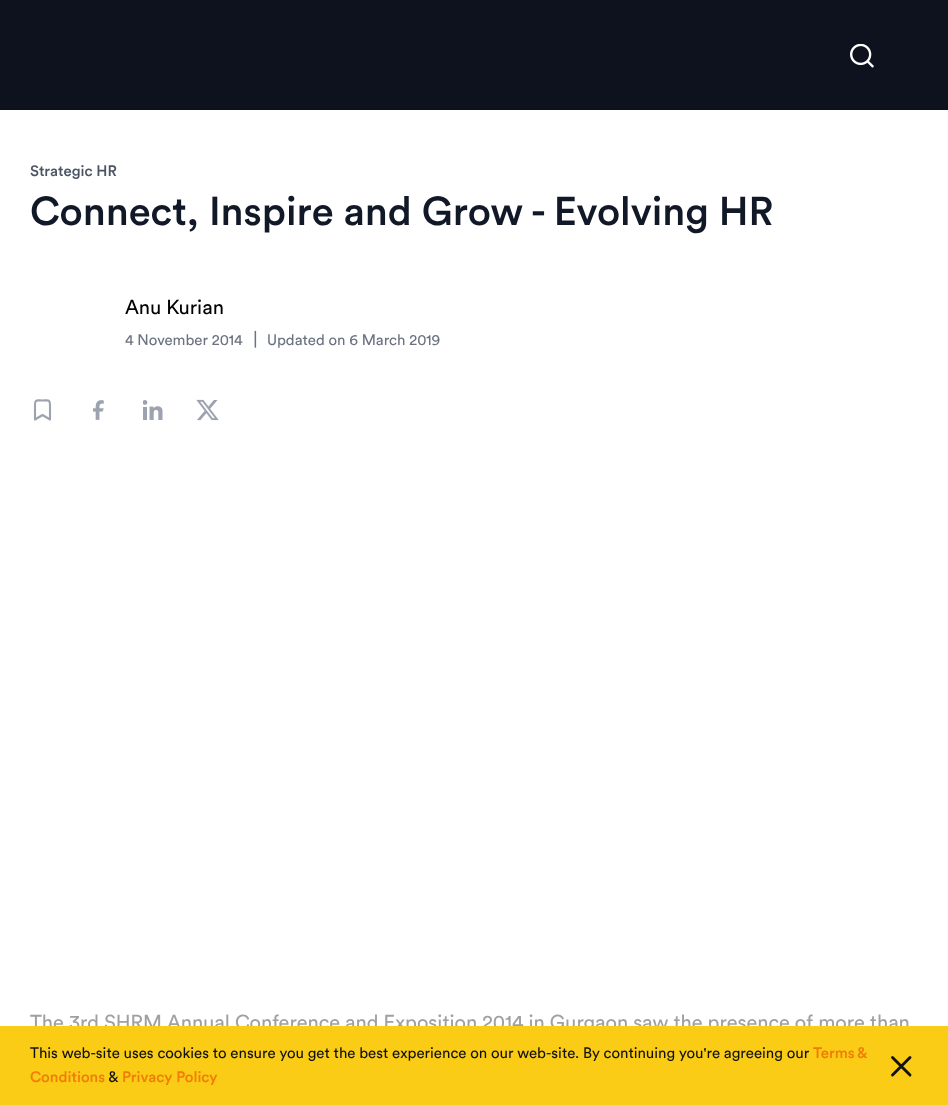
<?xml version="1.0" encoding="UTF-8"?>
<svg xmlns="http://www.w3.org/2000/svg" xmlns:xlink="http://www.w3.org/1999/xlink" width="948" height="1105">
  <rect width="100%" height="100%" fill="#ffffff" />
  <rect width="948" height="110" fill="#0d121e" />
  <image x="850" y="44" width="24" height="24" xlink:href="image1.png" />
  <path d="M 50 419.5 l -7.5 -4.5 l -7.5 4.5 v -14 c 0 -6.5 1.5 -5 7.5 -5 c 6 0 7.5 -1.5 7.5 5 z" fill="none" stroke="#9ca3af" stroke-width="2.1" stroke-linecap="round" stroke-linejoin="round" />
  <image x="93" y="400" width="11" height="20" xlink:href="image2.png" />
  <image x="143" y="400" width="20" height="20" xlink:href="image3.png" />
  <image x="196" y="399" width="23" height="22" xlink:href="image4.png" />
  <text x="30" y="176" style="font-family: Circular; font-size: 15px; font-weight: 500; fill: #4b5563">Strategic HR</text>
  <text x="30" y="225" style="font-family: Circular; font-size: 40px; font-weight: 500; fill: #111827">Connect, Inspire and Grow - Evolving HR</text>
  <text x="125" y="314" style="font-family: Circular; font-size: 20px; fill: #000000">Anu Kurian</text>
  <text x="125" y="345" style="font-family: Circular; font-size: 15px; fill: #6b7280">4 November 2014</text>
  <text x="253" y="345" style="font-family: Circular; font-size: 18px; fill: #6b7280">|</text>
  <text x="267" y="345" style="font-family: Circular; font-size: 15px; fill: #6b7280">Updated on 6 March 2019</text>
  <text x="30" y="1029" style="font-family: Circular; font-size: 20px; fill: #a0a0a0">The 3rd SHRM Annual Conference and Exposition 2014 in Gurgaon saw the presence of more than</text>
  <rect y="1026" width="948" height="79" fill="#facc15" />
  <text x="30" y="1058" style="font-family: Circular; font-size: 15px; fill: #121212">This web-site uses cookies to ensure you get the best experience on our web-site. By continuing you're agreeing our</text>
  <text x="813" y="1058" word-spacing="-1" style="font-family: Circular; font-size: 15px; font-weight: 500; fill: #f17c06">Terms &amp;</text>
  <text x="30" y="1082" style="font-family: Circular; font-size: 15px; font-weight: 500; fill: #f17c06">Conditions</text>
  <text x="108" y="1082" style="font-family: Circular; font-size: 15px; fill: #121212">&amp;</text>
  <text x="122" y="1082" style="font-family: Circular; font-size: 15px; font-weight: 500; fill: #f17c06">Privacy Policy</text>
  <path d="M 910 1057.5 l -17.5 17.5 m 0 -17.5 l 17.5 17.5" fill="none" stroke="#121212" stroke-width="2.9" stroke-linecap="round" stroke-linejoin="round" />
</svg>
